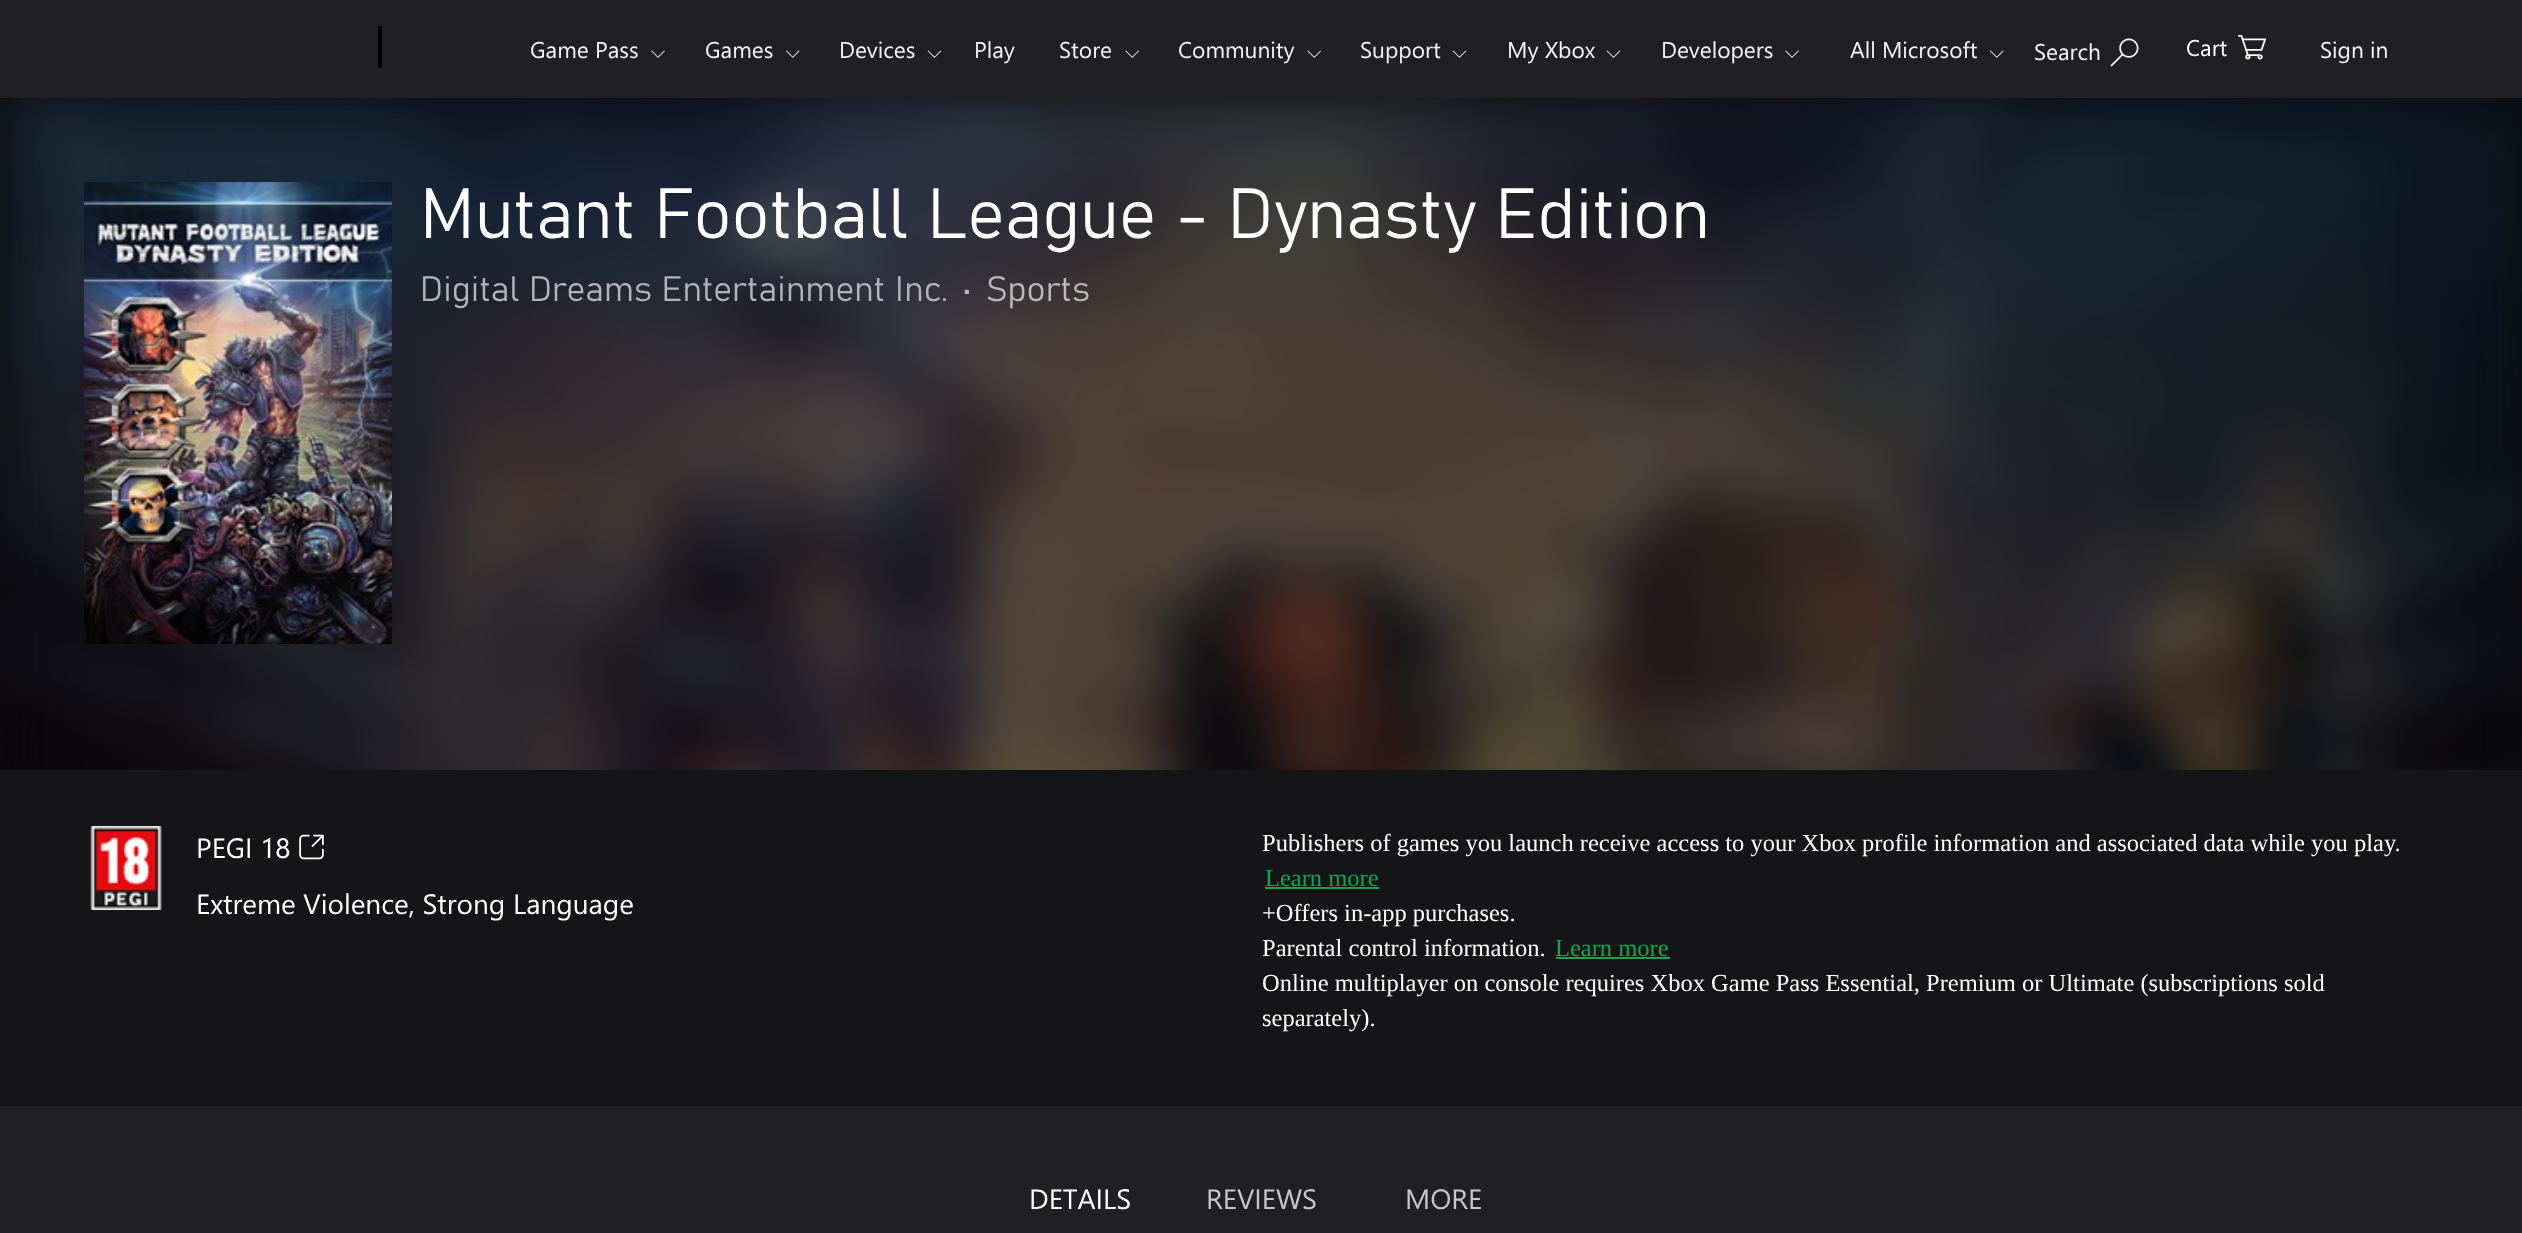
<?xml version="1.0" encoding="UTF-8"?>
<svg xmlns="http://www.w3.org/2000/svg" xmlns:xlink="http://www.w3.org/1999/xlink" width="2522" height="1233">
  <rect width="100%" height="100%" fill="#201f24" />
  <rect y="98" width="2522" height="672" fill="#0c0b0d" />
  <rect x="378" y="26" width="4" height="42" fill="#000000" />
  <image x="651" y="50" width="14" height="8" xlink:href="image1.png" />
  <image x="786" y="50" width="14" height="8" xlink:href="image2.png" />
  <image x="927" y="50" width="15" height="8" xlink:href="image3.png" />
  <image x="1125" y="50" width="14" height="8" xlink:href="image4.png" />
  <image x="1307" y="50" width="14" height="8" xlink:href="image4.png" />
  <image x="1452" y="50" width="15" height="8" xlink:href="image3.png" />
  <image x="1606" y="50" width="15" height="8" xlink:href="image3.png" />
  <image x="1785" y="50" width="14" height="8" xlink:href="image1.png" />
  <image x="1990" y="50" width="14" height="8" xlink:href="image2.png" />
  <image x="2110" y="38" width="29" height="29" xlink:href="image5.png" />
  <image x="2238" y="35" width="28" height="25" xlink:href="image6.png" />
  <image x="0" y="98" width="2522" height="672" xlink:href="image7.png" />
  <image x="84" y="182" width="308" height="462" xlink:href="image8.png" />
  <rect y="770" width="2522" height="336" fill="#151517" />
  <image x="90" y="826" width="72" height="84" xlink:href="image9.png" />
  <image x="299" y="834" width="25" height="26" xlink:href="image10.png" />
  <rect x="1265" y="887" width="114" height="2" fill="#04ab4f" />
  <rect x="1556" y="957" width="114" height="2" fill="#04ab4f" />
  <text x="530" y="58" style="font-family: Segoe UI; font-size: 22.75px; fill: #f2f2f2">Game Pass</text>
  <text x="705" y="58" style="font-family: Segoe UI; font-size: 22.75px; fill: #f2f2f2">Games</text>
  <text x="839" y="58" style="font-family: Segoe UI; font-size: 22.75px; fill: #f2f2f2">Devices</text>
  <text x="974" y="58" style="font-family: Segoe UI; font-size: 22.75px; fill: #f2f2f2">Play</text>
  <text x="1059" y="58" style="font-family: Segoe UI; font-size: 22.75px; fill: #f2f2f2">Store</text>
  <text x="1178" y="58" style="font-family: Segoe UI; font-size: 22.75px; fill: #f2f2f2">Community</text>
  <text x="1360" y="58" style="font-family: Segoe UI; font-size: 22.75px; fill: #f2f2f2">Support</text>
  <text x="1507" y="58" style="font-family: Segoe UI; font-size: 22.75px; fill: #f2f2f2">My Xbox</text>
  <text x="1661" y="58" style="font-family: Segoe UI; font-size: 22.75px; fill: #f2f2f2">Developers</text>
  <text x="1850" y="58" style="font-family: Segoe UI; font-size: 22.75px; fill: #f2f2f2">All Microsoft</text>
  <text x="2034" y="60" style="font-family: Segoe UI; font-size: 22.75px; fill: #f2f2f2">Search</text>
  <text x="2186" y="56" style="font-family: Segoe UI; font-size: 22.75px; fill: #ffffff">Cart</text>
  <text x="2320" y="58" style="font-family: Segoe UI; font-size: 22.75px; fill: #f2f2f2">Sign in</text>
  <text x="420" y="238" style="font-family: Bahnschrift; font-size: 70px; font-weight: 300; fill: #ffffff">Mutant Football League - Dynasty Edition</text>
  <text x="420" y="301" style="font-family: Bahnschrift; font-size: 35px; font-weight: 300; fill: #b3b4b8">Digital Dreams Entertainment Inc.</text>
  <text x="962" y="301" style="font-family: Bahnschrift; font-size: 35px; font-weight: 300; fill: #b9b8ba">•</text>
  <text x="986" y="301" style="font-family: Bahnschrift; font-size: 35px; font-weight: 300; fill: #b9b8ba">Sports</text>
  <text x="196" y="858" style="font-family: Segoe UI; font-size: 28px; fill: #ffffff">PEGI 18</text>
  <text x="196" y="914" style="font-family: Segoe UI; font-size: 28px; fill: #ffffff">Extreme Violence, Strong Language</text>
  <text x="1262" y="851" style="font-family: Liberation Serif; font-size: 24.5px; fill: #ffffff">Publishers of games you launch receive access to your Xbox profile information and associated data while you play.</text>
  <text x="1265" y="886" style="font-family: Liberation Serif; font-size: 24.5px; fill: #04ab4f">Learn more</text>
  <text x="1262" y="921" style="font-family: Liberation Serif; font-size: 24.5px; fill: #ffffff">+Offers in-app purchases.</text>
  <text x="1262" y="956" style="font-family: Liberation Serif; font-size: 24.5px; fill: #ffffff">Parental control information.</text>
  <text x="1555" y="956" style="font-family: Liberation Serif; font-size: 24.5px; fill: #04ab4f">Learn more</text>
  <text x="1262" y="991" style="font-family: Liberation Serif; font-size: 24.5px; fill: #ffffff">Online multiplayer on console requires Xbox Game Pass Essential, Premium or Ultimate (subscriptions sold</text>
  <text x="1262" y="1026" style="font-family: Liberation Serif; font-size: 24.5px; fill: #ffffff">separately).</text>
  <text x="1029" y="1209" style="font-family: Segoe UI; font-size: 28px; fill: #ffffff">DETAILS</text>
  <text x="1206" y="1209" style="font-family: Segoe UI; font-size: 28px; fill: #c7c7c8">REVIEWS</text>
  <text x="1405" y="1209" style="font-family: Segoe UI; font-size: 28px; fill: #c7c7c8">MORE</text>
</svg>
